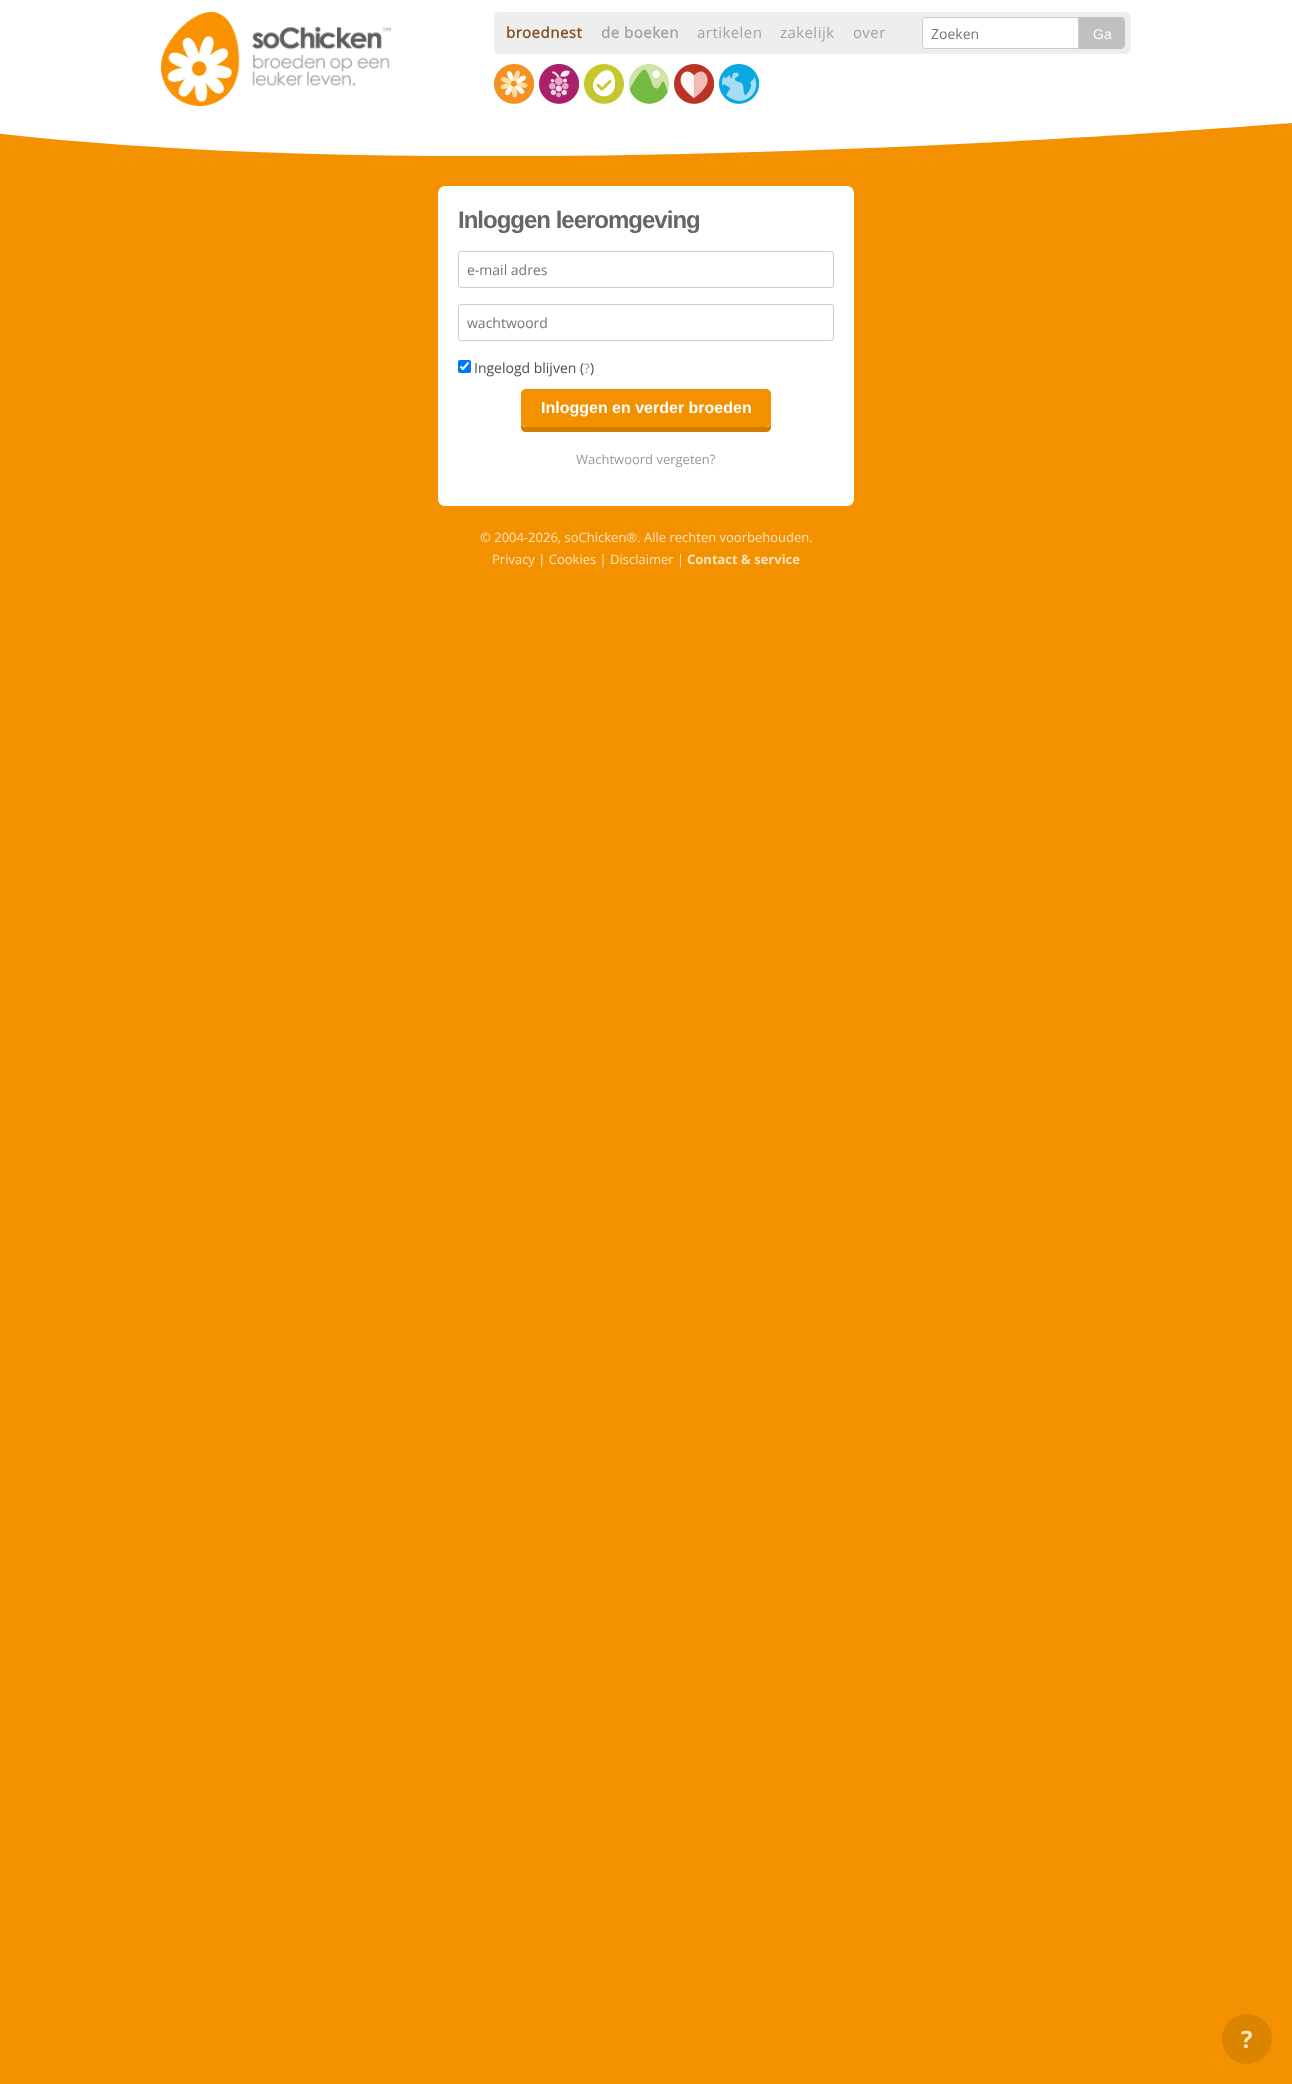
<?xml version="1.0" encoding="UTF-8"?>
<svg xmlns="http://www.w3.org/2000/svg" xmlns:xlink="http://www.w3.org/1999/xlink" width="1292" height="2084">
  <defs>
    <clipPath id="clip1"><rect y="106" width="1292" height="50" /></clipPath>
  </defs>
  <rect width="100%" height="100%" fill="#f49100" />
  <rect width="1292" height="106" fill="#ffffff" />
  <image x="161" y="12" width="230" height="94" xlink:href="image1.png" />
  <rect x="494" y="12" width="637" height="42" rx="5" fill="#eeeeee" />
  <path d="M 926 17.5 h 152.5 v 31 h -152.5 c -2 0 -3.5 -1.5 -3.5 -3.5 v -24 c 0 -2 1.5 -3.5 3.5 -3.5 z" fill="#ffffff" stroke="#cccccc" />
  <path d="M 1079 17 h 42 c 2 0 4 2 4 4 v 24 c 0 2 -2 4 -4 4 h -42 z" fill="#c0c0c0" />
  <image x="494" y="64" width="40" height="40" xlink:href="image2.png" />
  <image x="539" y="64" width="40" height="40" xlink:href="image3.png" />
  <image x="584" y="64" width="40" height="40" xlink:href="image4.png" />
  <image x="629" y="64" width="40" height="40" xlink:href="image5.png" />
  <image x="674" y="64" width="40" height="40" xlink:href="image6.png" />
  <image x="719" y="64" width="40" height="40" xlink:href="image7.png" />
  <g clip-path="url(#clip1)">
    <path d="M 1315 121 c 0 0 -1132 98 -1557 -33 l 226 -44 l 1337 -3 z" fill="#ffffff" />
  </g>
  <rect x="438" y="186" width="416" height="320" rx="7" fill="#ffffff" />
  <rect x="458.5" y="251.5" width="375" height="36" rx="2.5" fill="none" stroke="#cccccc" />
  <rect x="458.5" y="304.5" width="375" height="36" rx="2.5" fill="none" stroke="#cccccc" />
  <rect x="458" y="360" width="13" height="13" rx="2" fill="#0075ff" />
  <path d="M 460.5 366.5 l 2.5 2.5 l 5.5 -6.5" fill="none" stroke="#ffffff" stroke-width="2.1" />
  <path d="M 521 422 v 5 c 0 3 2 5 5 5 h 240 c 3 0 5 -2 5 -5 v -5 c 0 3 -2 5 -5 5 h -240 c -3 0 -5 -2 -5 -5 z" fill="#d27f00" />
  <rect x="521" y="389" width="250" height="38" rx="5" fill="#f39100" />
  <circle cx="1247" cy="2039" r="25" fill="#db8400" />
  <text x="506" y="38" style="font-family: 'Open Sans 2'; font-size: 15px; font-weight: bold; letter-spacing: 0.5px; fill: #7e511e">broednest</text>
  <text x="601" y="38" style="font-family: 'Open Sans 2'; font-size: 15px; font-weight: bold; letter-spacing: 0.5px; fill: #a3a3a3">de boeken</text>
  <text x="697" y="38" style="font-family: 'Open Sans 2'; font-size: 15px; letter-spacing: 0.5px; fill: #a3a3a3">artikelen</text>
  <text x="780" y="38" style="font-family: 'Open Sans 2'; font-size: 15px; letter-spacing: 0.5px; fill: #a3a3a3">zakelijk</text>
  <text x="853" y="38" style="font-family: 'Open Sans 2'; font-size: 15px; letter-spacing: 0.5px; fill: #a3a3a3">over</text>
  <text x="931" y="39" style="font-family: Open Sans; font-size: 14px; fill: #757575">Zoeken</text>
  <text x="1093" y="39" style="font-family: Liberation Sans; font-size: 14px; fill: #ffffff">Ga</text>
  <text x="458" y="228" style="font-family: Liberation Sans; font-size: 24px; font-weight: bold; letter-spacing: -1px; fill: #666666">Inloggen leeromgeving</text>
  <text x="467" y="275" style="font-family: Open Sans; font-size: 14px; fill: #757575">e-mail adres</text>
  <text x="467" y="328" style="font-family: Open Sans; font-size: 14px; fill: #757575">wachtwoord</text>
  <text x="474" y="373" style="font-family: Open Sans; font-size: 14px; fill: #4d4d4d">Ingelogd blijven (</text>
  <text x="584" y="373" style="font-family: Open Sans; font-size: 13px; fill: #999999">?</text>
  <text x="590" y="373" style="font-family: Open Sans; font-size: 14px; fill: #4d4d4d">)</text>
  <text x="541" y="413" style="font-family: Liberation Sans; font-size: 16px; font-weight: bold; fill: #ffffff">Inloggen en verder broeden</text>
  <text x="576" y="464" style="font-family: Open Sans; font-size: 13px; fill: #999999">Wachtwoord vergeten?</text>
  <text x="480" y="542" style="font-family: Open Sans; font-size: 13px; fill: #fce4bf">© 2004-2026, soChicken®. Alle rechten voorbehouden.</text>
  <text x="492" y="564" style="font-family: Open Sans; font-size: 13px; fill: #fce4bf">Privacy | Cookies | Disclaimer |</text>
  <text x="687" y="564" style="font-family: Open Sans; font-size: 13px; font-weight: bold; fill: #fce4bf">Contact &amp; service</text>
  <text x="1241" y="2048" style="font-family: Open Sans; font-size: 24px; font-weight: bold; fill: #fce4bf">?</text>
</svg>
